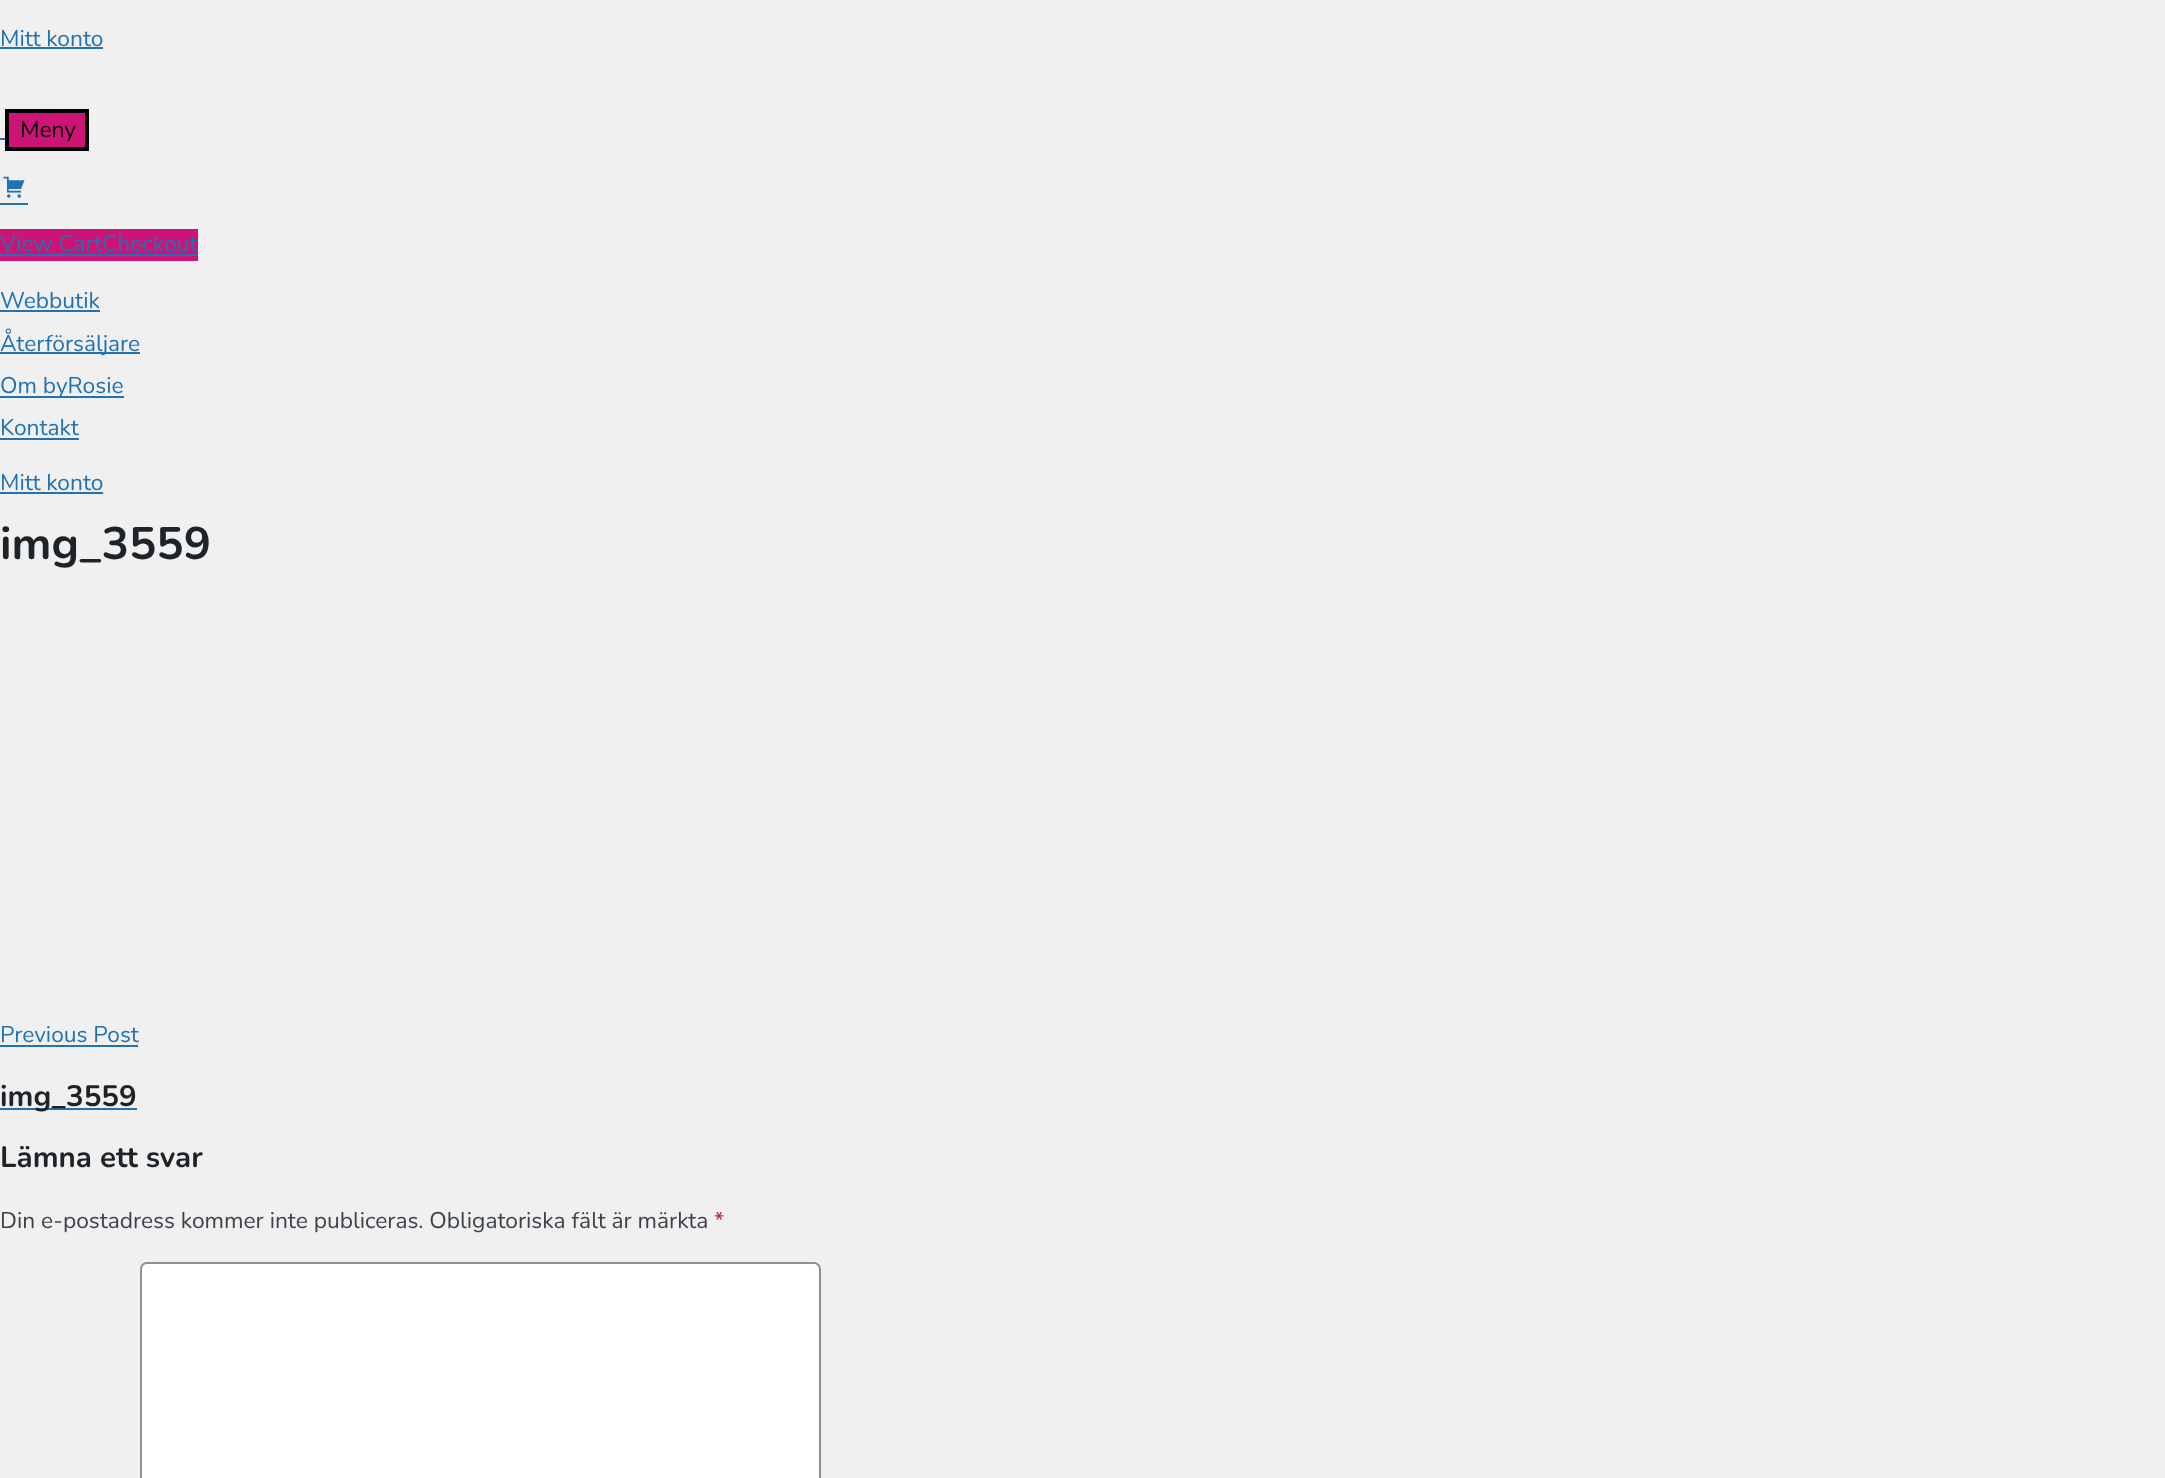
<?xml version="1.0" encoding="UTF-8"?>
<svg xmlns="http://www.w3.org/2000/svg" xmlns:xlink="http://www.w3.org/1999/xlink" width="2165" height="1478">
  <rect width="100%" height="100%" fill="#f0f0f1" />
  <rect y="47" width="103" height="2" fill="#2271b1" />
  <rect y="138" width="5" height="2" fill="#2271b1" />
  <rect x="7" y="111" width="80" height="38" fill="#ce1376" stroke="#000000" stroke-width="4" />
  <image x="3" y="176" width="22" height="22" xlink:href="image1.png" />
  <rect y="203" width="28" height="2" fill="#2271b1" />
  <rect y="229" width="102" height="32" fill="#ce1376" />
  <rect y="254" width="102" height="2" fill="#2271b1" />
  <rect y="310" width="100" height="2" fill="#2271b1" />
  <rect y="352" width="140" height="2" fill="#2271b1" />
  <rect y="396" width="124" height="2" fill="#2271b1" />
  <rect y="438" width="79" height="2" fill="#2271b1" />
  <rect y="492" width="103" height="2" fill="#2271b1" />
  <rect y="1045" width="138" height="2" fill="#2271b1" />
  <rect y="1108" width="137" height="2" fill="#2271b1" />
  <rect x="141" y="1263" width="679" height="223" rx="6" fill="#ffffff" stroke="#8c8f94" stroke-width="2" />
  <text x="0" y="46" style="font-family: Nunito; font-size: 22.75px; fill: #2271b1">Mitt konto</text>
  <text x="20" y="137" style="font-family: Nunito; font-size: 22.75px; fill: #000000">Meny</text>
  <text x="0" y="251" style="font-family: Nunito; font-size: 22.75px; fill: #2271b1">View Cart</text>
  <rect x="102" y="229" width="96" height="32" fill="#ce1376" />
  <text x="102" y="251" style="font-family: Nunito; font-size: 22.75px; fill: #2271b1">Checkout</text>
  <rect x="102" y="254" width="96" height="2" fill="#2271b1" />
  <text x="0" y="308" style="font-family: Nunito; font-size: 22.75px; fill: #2271b1">Webbutik</text>
  <text x="0" y="351" style="font-family: Nunito; font-size: 22.75px; fill: #2271b1">Återförsäljare</text>
  <text x="0" y="393" style="font-family: Nunito; font-size: 22.75px; fill: #2271b1">Om byRosie</text>
  <text x="0" y="435" style="font-family: Nunito; font-size: 22.75px; fill: #2271b1">Kontakt</text>
  <text x="0" y="490" style="font-family: Nunito; font-size: 22.75px; fill: #2271b1">Mitt konto</text>
  <text x="0" y="559" style="font-family: Nunito; font-size: 45.5px; font-weight: bold; fill: #1d2327">img_3559</text>
  <text x="0" y="1042" style="font-family: Nunito; font-size: 22.75px; fill: #2271b1">Previous Post</text>
  <text x="0" y="1106" style="font-family: Nunito; font-size: 29.5px; font-weight: bold; fill: #1d2327">img_3559</text>
  <text x="0" y="1167" style="font-family: Nunito; font-size: 29.5px; font-weight: bold; fill: #1d2327">Lämna ett svar</text>
  <text x="0" y="1228" style="font-family: Nunito; font-size: 22.75px; fill: #3c434a">Din e-postadress kommer inte publiceras. Obligatoriska fält är märkta</text>
  <text x="714" y="1228" style="font-family: Nunito; font-size: 22.75px; fill: #b32d2e">*</text>
</svg>
